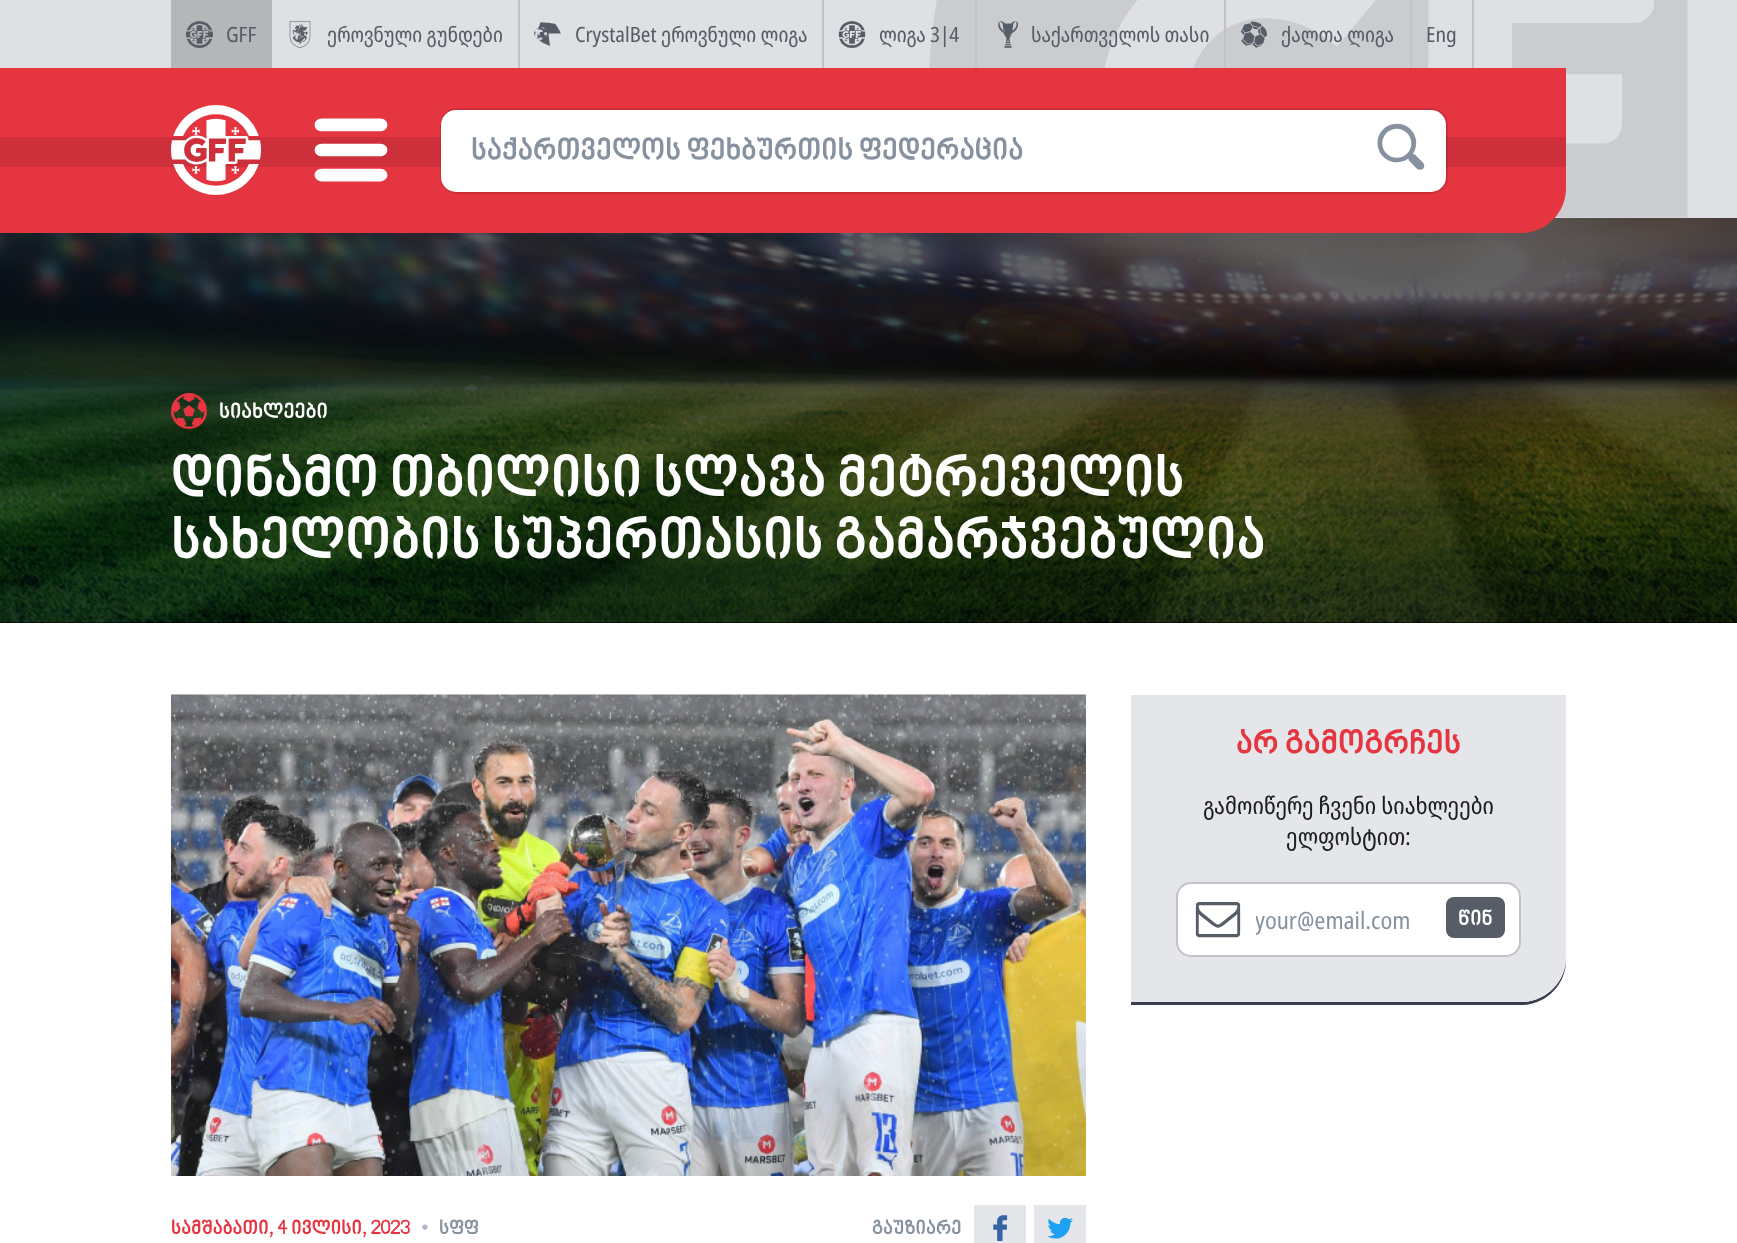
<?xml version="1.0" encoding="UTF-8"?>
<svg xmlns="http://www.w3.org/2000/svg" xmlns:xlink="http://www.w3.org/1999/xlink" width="1737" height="1243">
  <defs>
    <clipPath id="clip1"><rect x="1256" y="903" width="166" height="33" /></clipPath>
  </defs>
  <rect width="100%" height="100%" fill="#ffffff" />
  <rect width="1737" height="218" fill="#dee0e4" />
  <image x="929" y="0" width="759" height="218" xlink:href="image1.png" />
  <rect x="171" width="101" height="68" fill="#b4b6b9" />
  <image x="186" y="21" width="27" height="27" xlink:href="image2.png" />
  <rect x="518" width="2" height="68" fill="#c1c3c6" />
  <image x="289" y="21" width="22" height="27" xlink:href="image3.png" />
  <rect x="822" width="2" height="68" fill="#c1c3c6" />
  <image x="534" y="22" width="27" height="24" xlink:href="image4.png" />
  <rect x="975" width="2" height="68" fill="#c1c3c6" />
  <image x="838" y="21" width="28" height="27" xlink:href="image5.png" />
  <rect x="1224" width="2" height="68" fill="#c1c3c6" />
  <image x="998" y="21" width="20" height="27" xlink:href="image6.png" />
  <rect x="1410" width="2" height="68" fill="#c1c3c6" />
  <image x="1240" y="21" width="27" height="27" xlink:href="image7.png" />
  <rect x="1472" width="2" height="68" fill="#c1c3c6" />
  <rect y="218" width="1737" height="405" fill="#000000" />
  <image x="0" y="218" width="1737" height="405" xlink:href="image11.png" />
  <path d="M 0 68 h 1566 v 120 c 0 25 -20 45 -45 45 h -1521 z" fill="#e43541" />
  <rect y="137" width="1566" height="30" fill="#cd303b" />
  <image x="171" y="105" width="90" height="90" xlink:href="image8.png" />
  <image x="314" y="118" width="74" height="64" xlink:href="image9.png" />
  <rect x="441" y="109" width="1006" height="84" rx="16" fill="none" stroke="#000000" stroke-opacity="0.1" stroke-width="2" />
  <rect x="441" y="110" width="1005" height="82" rx="15" fill="#ffffff" />
  <image x="1377" y="123" width="48" height="47" xlink:href="image10.png" />
  <image x="171" y="393" width="36" height="36" xlink:href="image12.png" />
  <path d="M 1131 1002 v 3 h 390 c 25 0 45 -20 45 -45 v -3 c 0 25 -20 45 -45 45 z" fill="#3a3e4d" />
  <path d="M 1131 695 h 435 v 262 c 0 25 -20 45 -45 45 h -390 z" fill="#e4e6ea" />
  <rect x="1177" y="883" width="343" height="73" rx="14" fill="#ffffff" stroke="#c1c3c6" stroke-width="2" />
  <image x="1195" y="902" width="46" height="36" xlink:href="image13.png" />
  <rect x="1446" y="897" width="59" height="41" rx="8" fill="#565d66" />
  <image x="171" y="694" width="915" height="482" xlink:href="image14.png" />
  <rect x="974" y="1205" width="52" height="38" fill="#e4e6ea" />
  <image x="993" y="1215" width="15" height="26" xlink:href="image15.png" />
  <rect x="1034" y="1205" width="52" height="38" fill="#e4e6ea" />
  <image x="1047" y="1217" width="26" height="22" xlink:href="image16.png" />
  <text x="226" y="42" style="font-family: Noto Sans; font-size: 21px; fill: #565d66">GFF</text>
  <text x="327" y="42" style="font-family: Noto Sans Georgian; font-size: 21px; fill: #565d66">ეროვნული გუნდები</text>
  <text x="575" y="42" style="font-family: Noto Sans; font-size: 21px; fill: #565d66">CrystalBet</text>
  <text x="661" y="42" style="font-family: Noto Sans Georgian; font-size: 21px; fill: #565d66">ეროვნული ლიგა</text>
  <text x="879" y="42" style="font-family: Noto Sans Georgian; font-size: 21px; fill: #565d66">ლიგა</text>
  <text x="930" y="42" style="font-family: Noto Sans; font-size: 21px; fill: #565d66">3|4</text>
  <text x="1031" y="42" style="font-family: Noto Sans Georgian; font-size: 21px; fill: #565d66">საქართველოს თასი</text>
  <text x="1281" y="42" style="font-family: Noto Sans Georgian; font-size: 21px; fill: #565d66">ქალთა ლიგა</text>
  <text x="1426" y="42" style="font-family: Noto Sans; font-size: 21px; fill: #565d66">Eng</text>
  <text x="471" y="161" style="font-family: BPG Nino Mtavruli; font-size: 30px; font-weight: bold; fill: #8792a0">საქართველოს ფეხბურთის ფედერაცია</text>
  <text x="219" y="419" style="font-family: BPG Nino Mtavruli; font-size: 21px; font-weight: bold; fill: #ffffff">სიახლეები</text>
  <text x="171" y="499" style="font-family: BPG Nino Mtavruli; font-size: 57px; font-weight: bold; fill: #ffffff">დინამო თბილისი სლავა მეტრეველის</text>
  <text x="171" y="561" style="font-family: BPG Nino Mtavruli; font-size: 57px; font-weight: bold; fill: #ffffff">სახელობის სუპერთასის გამარჯვებულია</text>
  <text x="1236" y="755" style="font-family: BPG Nino Mtavruli; font-size: 33px; font-weight: bold; fill: #e43541">არ გამოგრჩეს</text>
  <text x="1203" y="814" style="font-family: Noto Sans Georgian; font-size: 24px; fill: #1c1d21">გამოიწერე ჩვენი სიახლეები</text>
  <text x="1286" y="845" style="font-family: Noto Sans Georgian; font-size: 24px; fill: #1c1d21">ელფოსტით</text>
  <text x="1405" y="845" style="font-family: Noto Sans; font-size: 24px; fill: #1c1d21">:</text>
  <g clip-path="url(#clip1)">
    <text x="1255" y="929" style="font-family: Noto Sans; font-size: 24px; fill: #8792a0">your@email.com</text>
  </g>
  <text x="1458" y="926" style="font-family: BPG Nino Mtavruli; font-size: 21px; font-weight: bold; fill: #ffffff">წინ</text>
  <text x="171" y="1235" style="font-family: BPG Nino Mtavruli; font-size: 19.5px; font-weight: bold; fill: #e43541">სამშაბათი, 4 ივლისი, 2023</text>
  <text x="421" y="1235" style="font-family: BPG Nino Mtavruli; font-size: 19.5px; font-weight: bold; fill: #b0b7cb">•</text>
  <text x="439" y="1235" style="font-family: BPG Nino Mtavruli; font-size: 19.5px; font-weight: bold; fill: #8792a0">სფფ</text>
  <text x="872" y="1235" style="font-family: BPG Nino Mtavruli; font-size: 19.5px; font-weight: bold; fill: #8792a0">გაუზიარე</text>
</svg>
